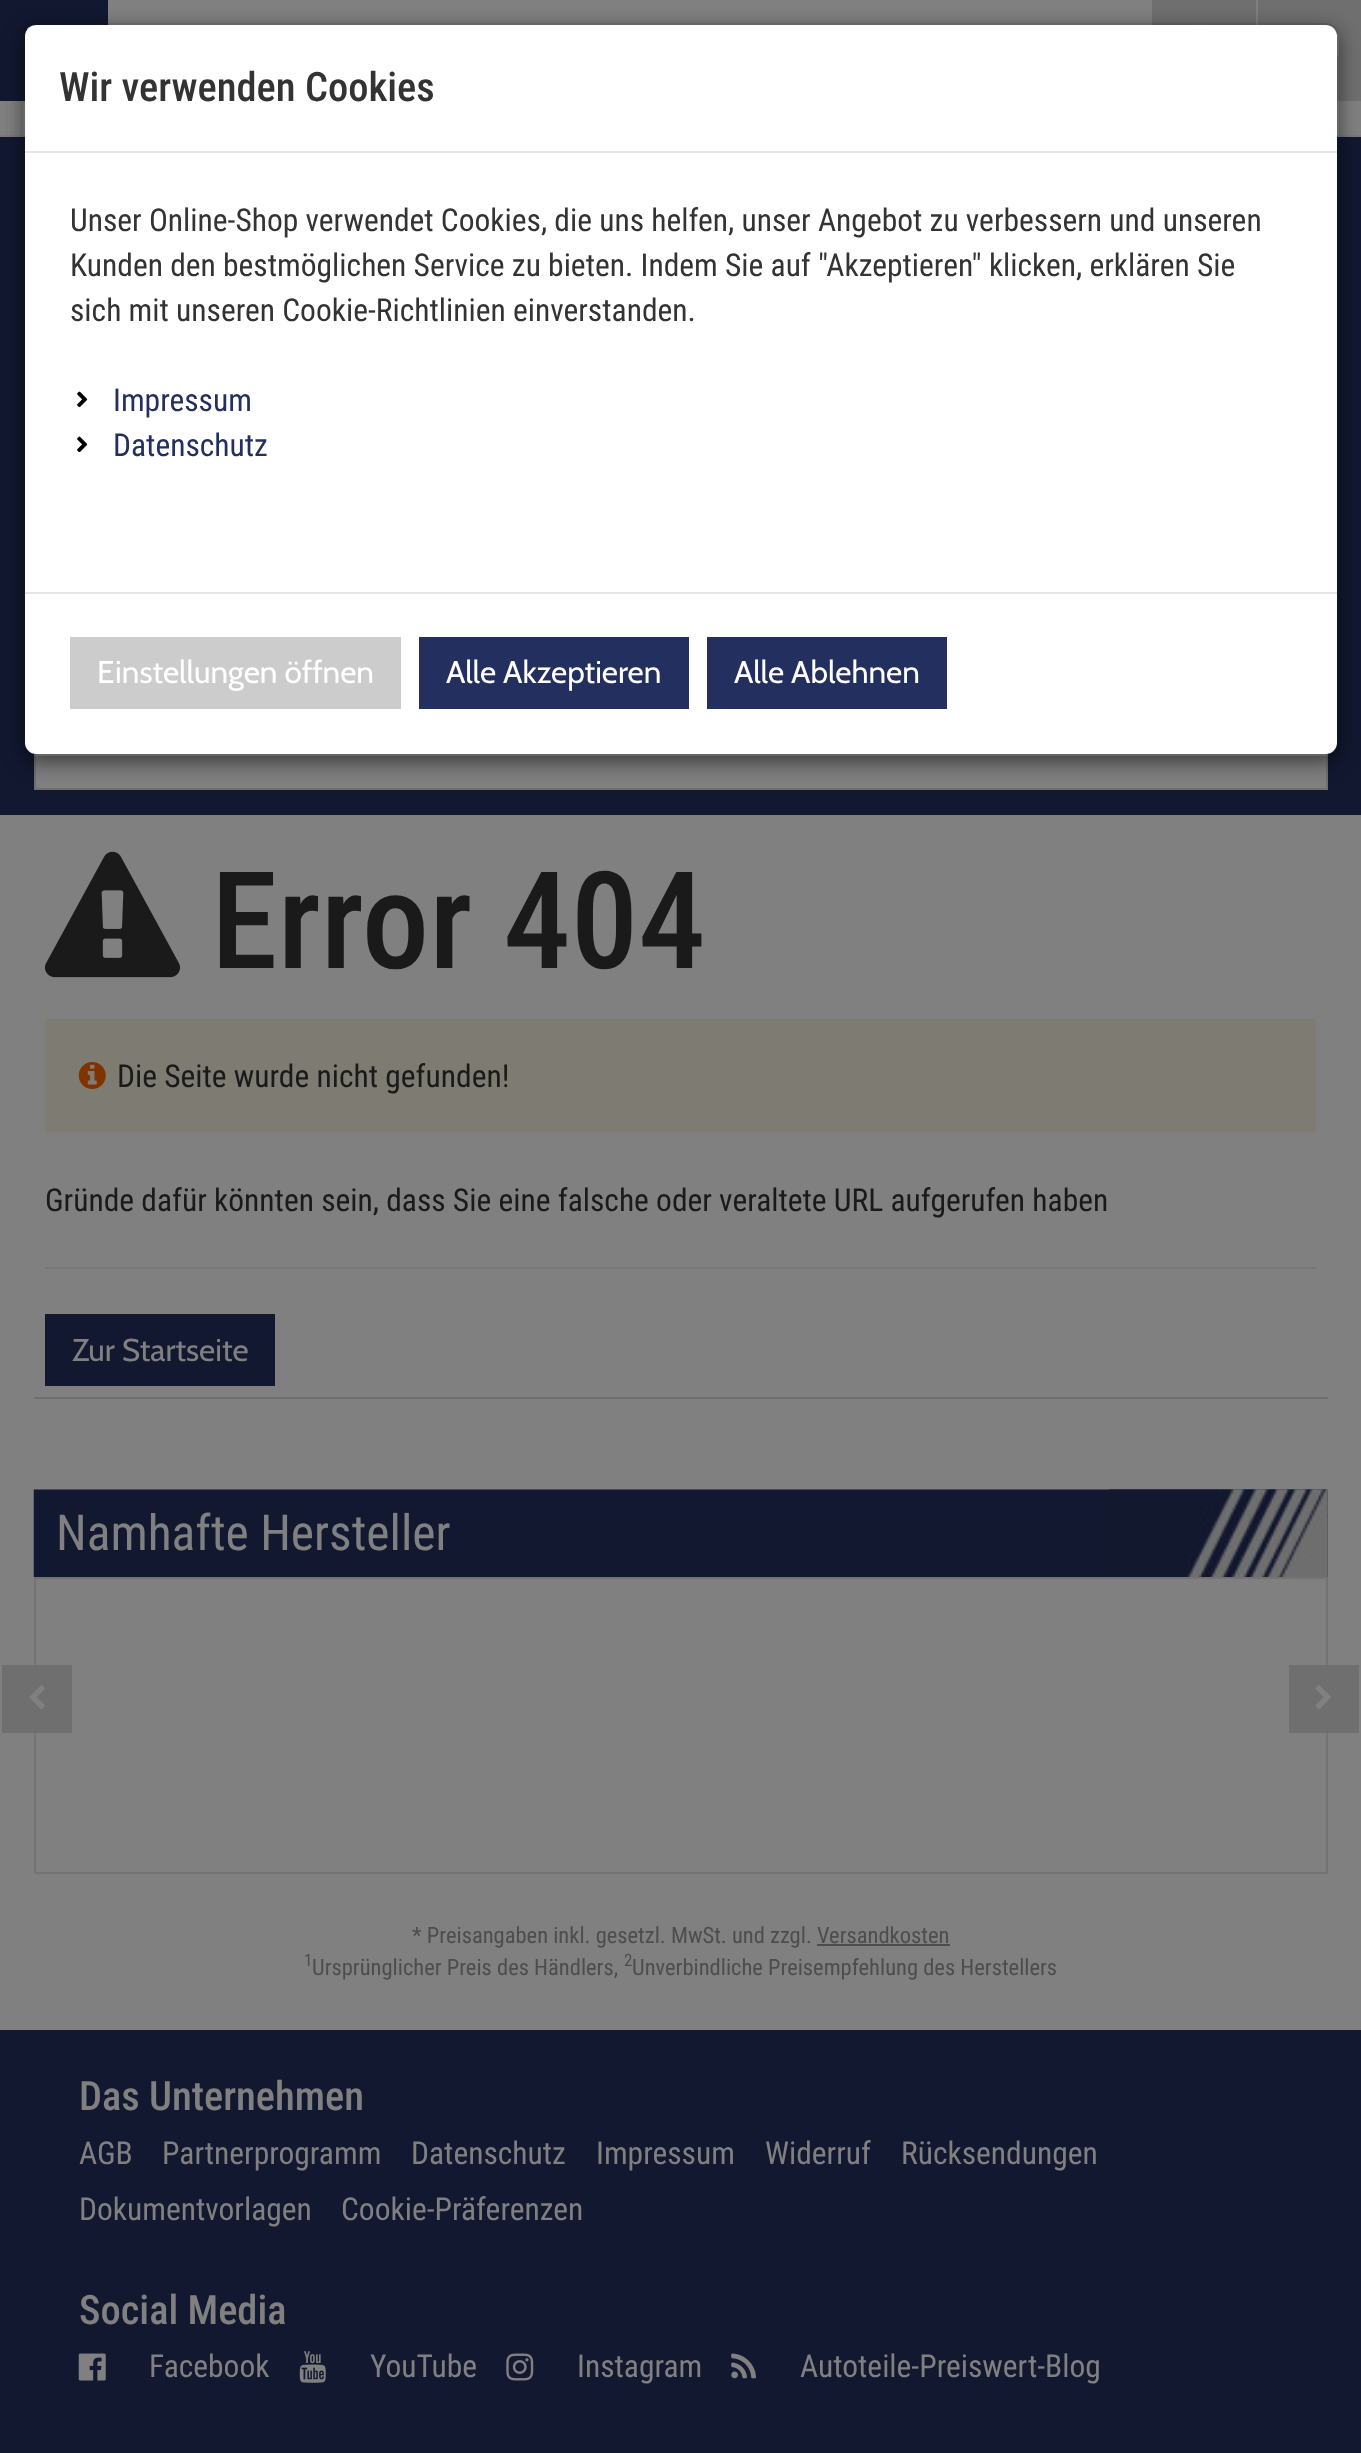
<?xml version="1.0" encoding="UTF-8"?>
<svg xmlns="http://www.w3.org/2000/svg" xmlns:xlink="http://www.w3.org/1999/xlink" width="1361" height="2453">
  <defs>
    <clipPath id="clip1"><path d="M 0 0 h 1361 v 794 h -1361 z m 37 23 h 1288 c 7.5 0 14 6.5 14 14 v 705 c 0 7.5 -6.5 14 -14 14 h -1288 c -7.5 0 -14 -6.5 -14 -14 v -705 c 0 -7.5 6.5 -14 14 -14 z" clip-rule="evenodd" /></clipPath>
  </defs>
  <rect width="100%" height="100%" fill="#808080" />
  <rect width="108" height="101" fill="#121830" />
  <image x="27" y="27" width="3" height="3" xlink:href="image2.png" />
  <rect x="1152" width="104" height="25" fill="#6f6f6f" />
  <image x="1196" y="24" width="7" height="1" xlink:href="image3.png" />
  <rect x="1258" width="103" height="101" fill="#6f6f6f" />
  <image x="1336" y="33" width="3" height="24" xlink:href="image4.png" />
  <rect y="135" width="1361" height="2" fill="#797979" />
  <rect y="137" width="1361" height="678" fill="#121830" />
  <rect x="36" y="754" width="1290" height="34" fill="#808080" />
  <rect x="35" y="701" width="1292" height="88" fill="none" stroke="#6f6f6f" stroke-width="2" />
  <g clip-path="url(#clip1)">
    <rect x="23" y="29" width="1316" height="734" rx="14" fill="#000000" fill-opacity="0.5" filter="blur(10px)" />
  </g>
  <rect x="25" y="25" width="1312" height="729" rx="11" fill="#ffffff" />
  <rect x="24" y="24" width="1314" height="731" rx="13" fill="none" stroke="#000000" stroke-opacity="0.2" stroke-width="2" />
  <rect x="25" y="151" width="1312" height="2" fill="#e5e5e5" />
  <image x="77" y="391" width="11" height="17" xlink:href="image1.png" />
  <image x="77" y="436" width="11" height="17" xlink:href="image1.png" />
  <rect x="25" y="592" width="1312" height="2" fill="#e5e5e5" />
  <rect x="70" y="637" width="331" height="72" fill="#cccccc" />
  <rect x="419" y="637" width="270" height="72" fill="#23305f" />
  <rect x="707" y="637" width="240" height="72" fill="#23305f" />
  <rect x="34" y="1397" width="1294" height="2" fill="#6f6f6f" />
  <image x="44" y="851" width="137" height="127" xlink:href="image5.png" />
  <rect x="45" y="1019" width="1271" height="113" fill="#7e7c72" />
  <image x="78" y="1062" width="28" height="27" xlink:href="image6.png" />
  <rect x="45" y="1267" width="1271" height="2" fill="#777777" />
  <rect x="45" y="1314" width="230" height="72" fill="#121830" />
  <image x="33" y="1489" width="1295" height="89" xlink:href="image7.png" />
  <rect x="35" y="1578" width="1292" height="295" fill="none" stroke="#737373" stroke-width="2" />
  <rect x="2" y="1665" width="70" height="68" fill="#6f6f6f" />
  <image x="29" y="1685" width="16" height="25" xlink:href="image8.png" />
  <rect x="1289" y="1665" width="70" height="68" fill="#6f6f6f" />
  <image x="1315" y="1685" width="16" height="25" xlink:href="image9.png" />
  <rect x="817" y="1944" width="133" height="2" fill="#4d4d4d" />
  <rect y="2030" width="1361" height="423" fill="#121830" />
  <image x="78" y="2353" width="28" height="28" xlink:href="image10.png" />
  <image x="299" y="2351" width="27" height="32" xlink:href="image11.png" />
  <image x="506" y="2353" width="28" height="28" xlink:href="image12.png" />
  <image x="731" y="2353" width="25" height="26" xlink:href="image13.png" />
  <text x="59" y="101" style="font-family: Roboto Condensed; font-size: 40.5px; font-weight: 500; fill: #333333">Wir verwenden Cookies</text>
  <text x="70" y="231" style="font-family: Roboto Condensed; font-size: 31.5px; fill: #333333">Unser Online-Shop verwendet Cookies, die uns helfen, unser Angebot zu verbessern und unseren</text>
  <text x="70" y="276" style="font-family: Roboto Condensed; font-size: 31.5px; fill: #333333">Kunden den bestmöglichen Service zu bieten. Indem Sie auf "Akzeptieren" klicken, erklären Sie</text>
  <text x="70" y="321" style="font-family: Roboto Condensed; font-size: 31.5px; fill: #333333">sich mit unseren Cookie-Richtlinien einverstanden.</text>
  <text x="113" y="411" style="font-family: Roboto Condensed; font-size: 31.5px; fill: #23305f">Impressum</text>
  <text x="113" y="456" style="font-family: Roboto Condensed; font-size: 31.5px; fill: #23305f">Datenschutz</text>
  <text x="97" y="683" style="font-family: Cabin; font-size: 31.5px; fill: #ffffff">Einstellungen öffnen</text>
  <text x="446" y="683" style="font-family: Cabin; font-size: 31.5px; fill: #ffffff">Alle Akzeptieren</text>
  <text x="734" y="683" style="font-family: Cabin; font-size: 31.5px; fill: #ffffff">Alle Ablehnen</text>
  <text x="211" y="968" style="font-family: Roboto Condensed; font-size: 135px; font-weight: 500; fill: #1a1a1a">Error 404</text>
  <text x="117" y="1087" style="font-family: Roboto Condensed; font-size: 31.5px; fill: #1a1a1a">Die Seite wurde nicht gefunden!</text>
  <text x="45" y="1211" style="font-family: Roboto Condensed; font-size: 31.5px; fill: #1a1a1a">Gründe dafür könnten sein, dass Sie eine falsche oder veraltete URL aufgerufen haben</text>
  <text x="72" y="1361" style="font-family: Cabin; font-size: 31.5px; fill: #808080">Zur Startseite</text>
  <text x="56" y="1550" style="font-family: Roboto Condensed; font-size: 49.5px; fill: #808080">Namhafte Hersteller</text>
  <text x="412" y="1943" style="font-family: Roboto Condensed; font-size: 22.5px; fill: #4d4d4d">* Preisangaben inkl. gesetzl. MwSt. und zzgl. Versandkosten</text>
  <text x="304" y="1966" style="font-family: Roboto Condensed; font-size: 17px; fill: #4d4d4d">1</text>
  <text x="312" y="1975" style="font-family: Roboto Condensed; font-size: 22.5px; fill: #4d4d4d">Ursprünglicher Preis des Händlers,</text>
  <text x="624" y="1966" style="font-family: Roboto Condensed; font-size: 17px; fill: #4d4d4d">2</text>
  <text x="632" y="1975" style="font-family: Roboto Condensed; font-size: 22.5px; fill: #4d4d4d">Unverbindliche Preisempfehlung des Herstellers</text>
  <text x="79" y="2110" style="font-family: Roboto Condensed; font-size: 40.5px; font-weight: 500; fill: #808080">Das Unternehmen</text>
  <text x="79" y="2164" style="font-family: Roboto Condensed; font-size: 31.5px; fill: #808080">AGB</text>
  <text x="162" y="2164" style="font-family: Roboto Condensed; font-size: 31.5px; fill: #808080">Partnerprogramm</text>
  <text x="411" y="2164" style="font-family: Roboto Condensed; font-size: 31.5px; fill: #808080">Datenschutz</text>
  <text x="596" y="2164" style="font-family: Roboto Condensed; font-size: 31.5px; fill: #808080">Impressum</text>
  <text x="765" y="2164" style="font-family: Roboto Condensed; font-size: 31.5px; fill: #808080">Widerruf</text>
  <text x="901" y="2164" style="font-family: Roboto Condensed; font-size: 31.5px; fill: #808080">Rücksendungen</text>
  <text x="79" y="2220" style="font-family: Roboto Condensed; font-size: 31.5px; fill: #808080">Dokumentvorlagen</text>
  <text x="341" y="2220" style="font-family: Roboto Condensed; font-size: 31.5px; fill: #808080">Cookie-Präferenzen</text>
  <text x="79" y="2324" style="font-family: Roboto Condensed; font-size: 40.5px; font-weight: 500; fill: #808080">Social Media</text>
  <text x="149" y="2377" style="font-family: Roboto Condensed; font-size: 31.5px; fill: #808080">Facebook</text>
  <text x="370" y="2377" style="font-family: Roboto Condensed; font-size: 31.5px; fill: #808080">YouTube</text>
  <text x="577" y="2377" style="font-family: Roboto Condensed; font-size: 31.5px; fill: #808080">Instagram</text>
  <text x="800" y="2377" style="font-family: Roboto Condensed; font-size: 31.5px; fill: #808080">Autoteile-Preiswert-Blog</text>
</svg>
